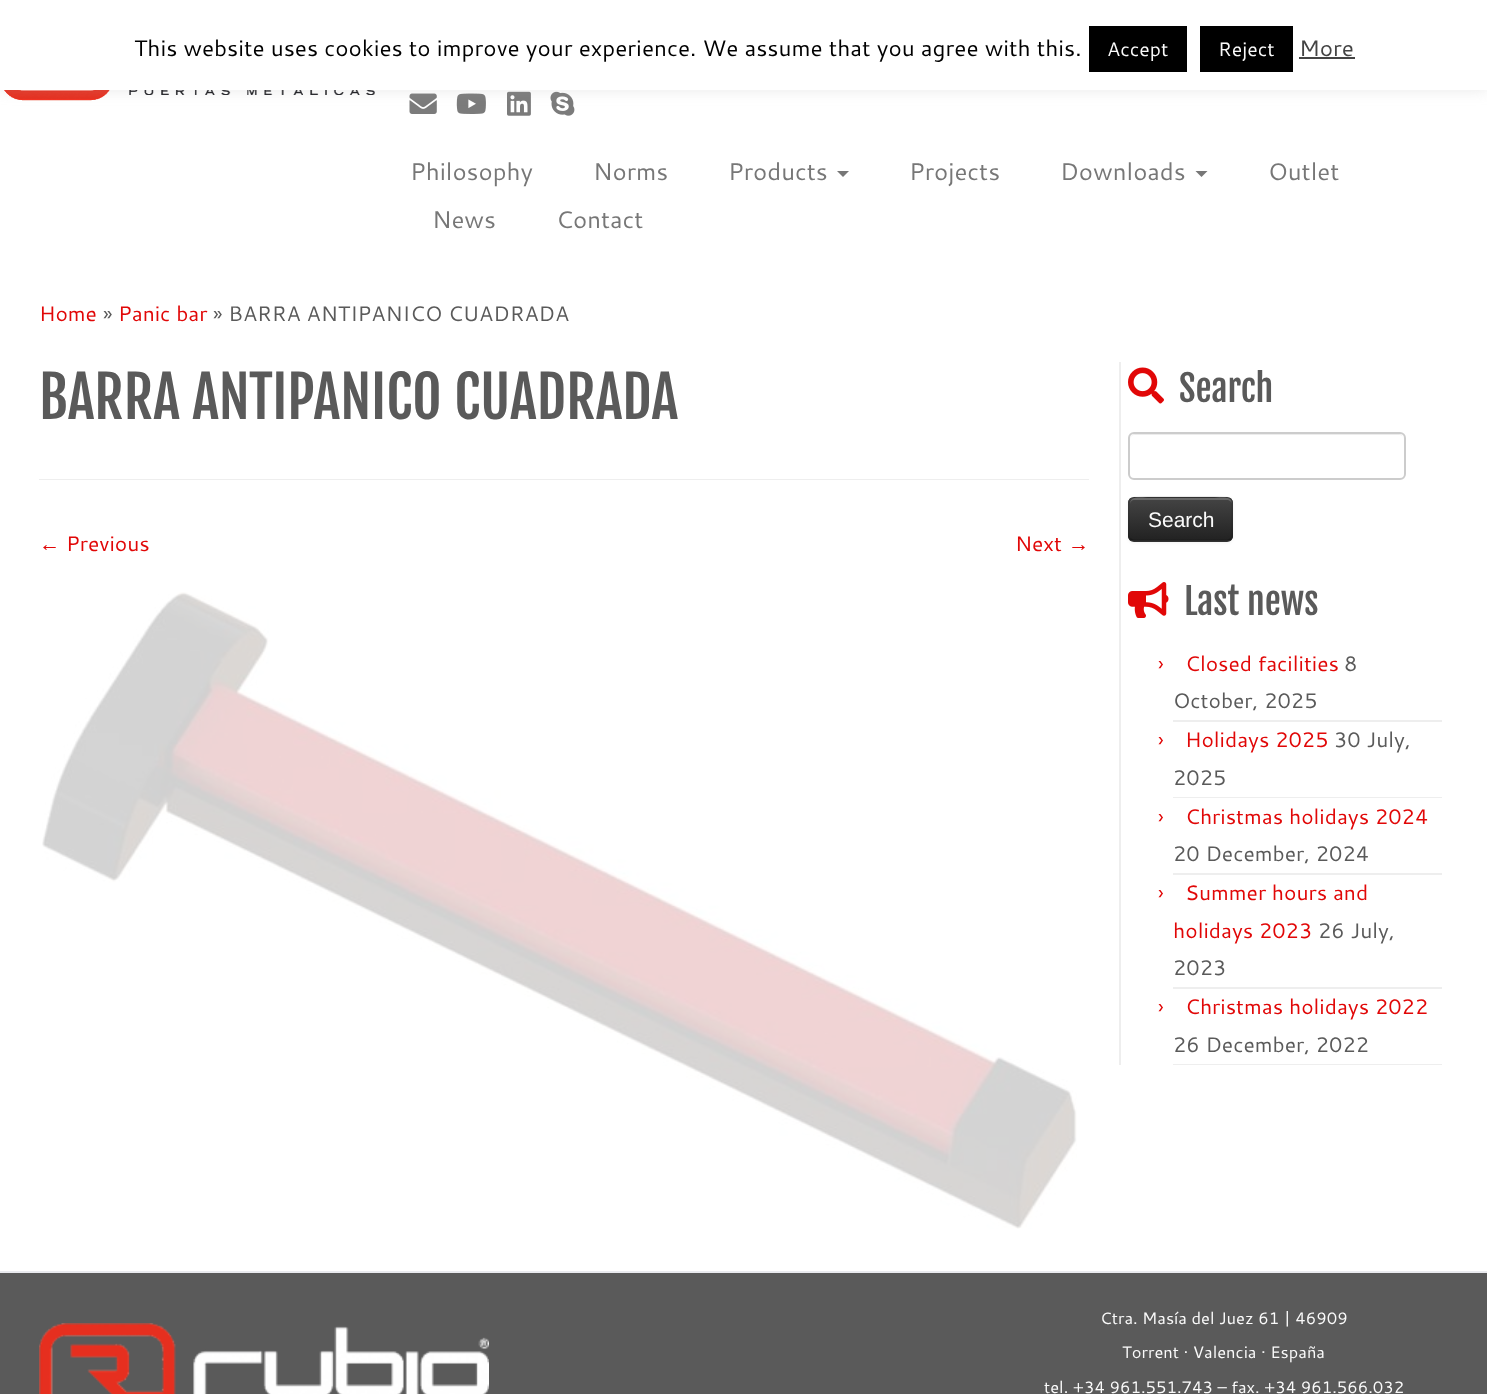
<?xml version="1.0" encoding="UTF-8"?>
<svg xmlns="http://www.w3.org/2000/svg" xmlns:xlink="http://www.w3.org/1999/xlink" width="1487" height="1394">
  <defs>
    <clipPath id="clip1"><rect x="1128" y="497" width="105" height="45" rx="6" /></clipPath>
    <linearGradient id="g1" gradientUnits="userSpaceOnUse" x1="1181" y1="498" x2="1181" y2="540"><stop offset="0" stop-color="#444444" /><stop offset="1" stop-color="#222222" /></linearGradient>
  </defs>
  <rect width="100%" height="100%" fill="#ffffff" />
  <image x="4" y="90" width="371" height="11" xlink:href="image1.png" />
  <image x="409" y="93" width="28" height="21" xlink:href="image2.png" />
  <image x="456" y="93" width="30" height="21" xlink:href="image3.png" />
  <image x="507" y="91" width="24" height="25" xlink:href="image4.png" />
  <image x="550" y="91" width="25" height="25" xlink:href="image5.png" />
  <rect y="-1" width="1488" height="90" fill="#acabab" fill-opacity="0.3" filter="blur(7.5px)" />
  <rect width="1487" height="90" fill="#ffffff" />
  <rect x="1089" y="26" width="98" height="46" fill="#000000" />
  <rect x="1200" y="26" width="93" height="46" fill="#000000" />
  <rect x="1299" y="57" width="56" height="2" fill="#444444" />
  <path d="M 837 171 h 12 l -6 6 z" fill="#777777" />
  <path d="M 1195.5 171 h 12 l -6 6 z" fill="#777777" />
  <rect x="39" y="479" width="1050" height="1" fill="#eeeeee" />
  <image x="42" y="592" width="1035" height="637" xlink:href="image6.png" />
  <rect x="1119" y="362" width="2" height="703" fill="#eeeeee" />
  <image x="1128" y="367" width="36" height="37" xlink:href="image7.png" />
  <path d="M 1134 435 h 266 l 3 1 l 1 4 c 0 -3 -2 -6 -5 -6 h -264 c -3 0 -5 3 -5 6 c 0 -3 2 -5 4 -5 z" fill="#ececec" />
  <rect x="1129" y="433" width="276" height="46" rx="5" fill="none" stroke="#cccccc" stroke-width="2" />
  <rect x="1128" y="498" width="105" height="45" rx="6" fill="#000000" fill-opacity="0.05" filter="blur(1.5px)" />
  <rect x="1128" y="497" width="105" height="45" rx="6" fill="#363636" />
  <g clip-path="url(#clip1)">
    <rect x="1128" y="498" width="105" height="42" fill="url(#g1)" />
  </g>
  <path d="M 1134 500 h 93 c 2 0 5 2 5 4 c 0 -10 -15 -6 -20 -6 h -62 c -5 0 -20 -4 -20 6 c 0 -2 2 -4 4 -4 z" fill="#ffffff" fill-opacity="0.2" />
  <path d="M 1230.5 539 l -3 1.5 h -94 l -3 -1.5" fill="none" stroke="#000000" stroke-opacity="0.25" stroke-width="1.5" />
  <path d="M 1130.5 539 c -2.5 -2 -1.5 -6 -1.5 -9 v -11 c 0 -24 -4 -22 20.5 -22 h 62 c 24.5 0 20.5 -2 20.5 22 v 11 c 0 3 1 7 -1.5 9" fill="none" stroke="#000000" stroke-opacity="0.1" stroke-width="1.5" />
  <image x="1128" y="582" width="41" height="36" xlink:href="image8.png" />
  <rect x="1173" y="720" width="269" height="2" fill="#eeeeee" />
  <rect x="1173" y="797" width="269" height="1" fill="#eeeeee" />
  <rect x="1173" y="873" width="269" height="2" fill="#eeeeee" />
  <rect x="1173" y="987" width="269" height="2" fill="#eeeeee" />
  <rect x="1173" y="1064" width="269" height="1" fill="#eeeeee" />
  <rect y="1273" width="1487" height="121" fill="#5a5a5a" />
  <rect y="1271" width="1487" height="2" fill="#e9eaee" />
  <image x="39" y="1323" width="450" height="71" xlink:href="image9.png" />
  <text x="134" y="56" style="font-family: Cantarell; font-size: 22.5px; fill: #000000">This website uses cookies to improve your experience. We assume that you agree with this.</text>
  <text x="1107" y="56" style="font-family: Cantarell; font-size: 19.5px; fill: #fafafa">Accept</text>
  <text x="1218" y="56" style="font-family: Cantarell; font-size: 19.5px; fill: #fafafa">Reject</text>
  <text x="1299" y="56" style="font-family: Cantarell; font-size: 22.5px; fill: #444444">More</text>
  <text x="410" y="180" style="font-family: Cantarell; font-size: 24px; fill: #777777">Philosophy</text>
  <text x="593" y="180" style="font-family: Cantarell; font-size: 24px; fill: #777777">Norms</text>
  <text x="728" y="180" style="font-family: Cantarell; font-size: 24px; fill: #777777">Products</text>
  <text x="909" y="180" style="font-family: Cantarell; font-size: 24px; fill: #777777">Projects</text>
  <text x="1060" y="180" style="font-family: Cantarell; font-size: 24px; fill: #777777">Downloads</text>
  <text x="1268" y="180" style="font-family: Cantarell; font-size: 24px; fill: #777777">Outlet</text>
  <text x="432" y="228" style="font-family: Cantarell; font-size: 24px; fill: #777777">News</text>
  <text x="556" y="228" style="font-family: Cantarell; font-size: 24px; fill: #777777">Contact</text>
  <text x="39" y="321" style="font-family: Cantarell; font-size: 21px; fill: #e10707">Home</text>
  <text x="103" y="321" style="font-family: Cantarell; font-size: 21px; fill: #5a5a5a">»</text>
  <text x="118" y="321" style="font-family: Cantarell; font-size: 21px; fill: #e10707">Panic bar</text>
  <text x="213" y="321" style="font-family: Cantarell; font-size: 21px; fill: #5a5a5a">» BARRA ANTIPANICO CUADRADA</text>
  <text x="39" y="419" style="font-family: Fjalla One; font-size: 57px; fill: #5a5a5a">BARRA ANTIPANICO CUADRADA</text>
  <text x="39" y="551" style="font-family: Liberation Serif; font-size: 21px; fill: #e10707">←</text>
  <text x="66" y="551" style="font-family: Cantarell; font-size: 21px; fill: #e10707">Previous</text>
  <text x="1015" y="551" style="font-family: Cantarell; font-size: 21px; fill: #e10707">Next</text>
  <text x="1068" y="551" style="font-family: Liberation Serif; font-size: 21px; fill: #e10707">→</text>
  <text x="1179" y="402" style="font-family: Fjalla One; font-size: 36px; fill: #5a5a5a">Search</text>
  <text x="1148" y="527" style="font-family: Liberation Sans; font-size: 21px; fill: #fafafa">Search</text>
  <text x="1184" y="615" style="font-family: Fjalla One; font-size: 36px; fill: #5a5a5a">Last news</text>
  <text x="1158" y="671" style="font-family: Cantarell; font-size: 21px; fill: #e10707">›</text>
  <text x="1185" y="671" style="font-family: Cantarell; font-size: 21px; fill: #e10707">Closed facilities</text>
  <text x="1344" y="671" style="font-family: Cantarell; font-size: 21px; fill: #5a5a5a">8</text>
  <text x="1173" y="708" style="font-family: Cantarell; font-size: 21px; fill: #5a5a5a">October, 2025</text>
  <text x="1158" y="747" style="font-family: Cantarell; font-size: 21px; fill: #e10707">›</text>
  <text x="1185" y="747" style="font-family: Cantarell; font-size: 21px; fill: #e10707">Holidays 2025</text>
  <text x="1334" y="747" style="font-family: Cantarell; font-size: 21px; fill: #5a5a5a">30 July,</text>
  <text x="1173" y="785" style="font-family: Cantarell; font-size: 21px; fill: #5a5a5a">2025</text>
  <text x="1158" y="824" style="font-family: Cantarell; font-size: 21px; fill: #e10707">›</text>
  <text x="1185" y="824" style="font-family: Cantarell; font-size: 21px; fill: #e10707">Christmas holidays 2024</text>
  <text x="1173" y="861" style="font-family: Cantarell; font-size: 21px; fill: #5a5a5a">20 December, 2024</text>
  <text x="1158" y="900" style="font-family: Cantarell; font-size: 21px; fill: #e10707">›</text>
  <text x="1185" y="900" style="font-family: Cantarell; font-size: 21px; fill: #e10707">Summer hours and</text>
  <text x="1173" y="938" style="font-family: Cantarell; font-size: 21px; fill: #e10707">holidays 2023</text>
  <text x="1318" y="938" style="font-family: Cantarell; font-size: 21px; fill: #5a5a5a">26 July,</text>
  <text x="1173" y="975" style="font-family: Cantarell; font-size: 21px; fill: #5a5a5a">2023</text>
  <text x="1158" y="1014" style="font-family: Cantarell; font-size: 21px; fill: #e10707">›</text>
  <text x="1185" y="1014" style="font-family: Cantarell; font-size: 21px; fill: #e10707">Christmas holidays 2022</text>
  <text x="1173" y="1052" style="font-family: Cantarell; font-size: 21px; fill: #5a5a5a">26 December, 2022</text>
  <text x="1100" y="1324" style="font-family: Cantarell; font-size: 16.5px; fill: #fafafa">Ctra. Masía del Juez 61 | 46909</text>
  <text x="1122" y="1358" style="font-family: Cantarell; font-size: 16.5px; fill: #fafafa">Torrent · Valencia · España</text>
  <text x="1044" y="1393" style="font-family: Cantarell; font-size: 16.5px; fill: #fafafa">tel. +34 961.551.743 – fax. +34 961.566.032</text>
</svg>
